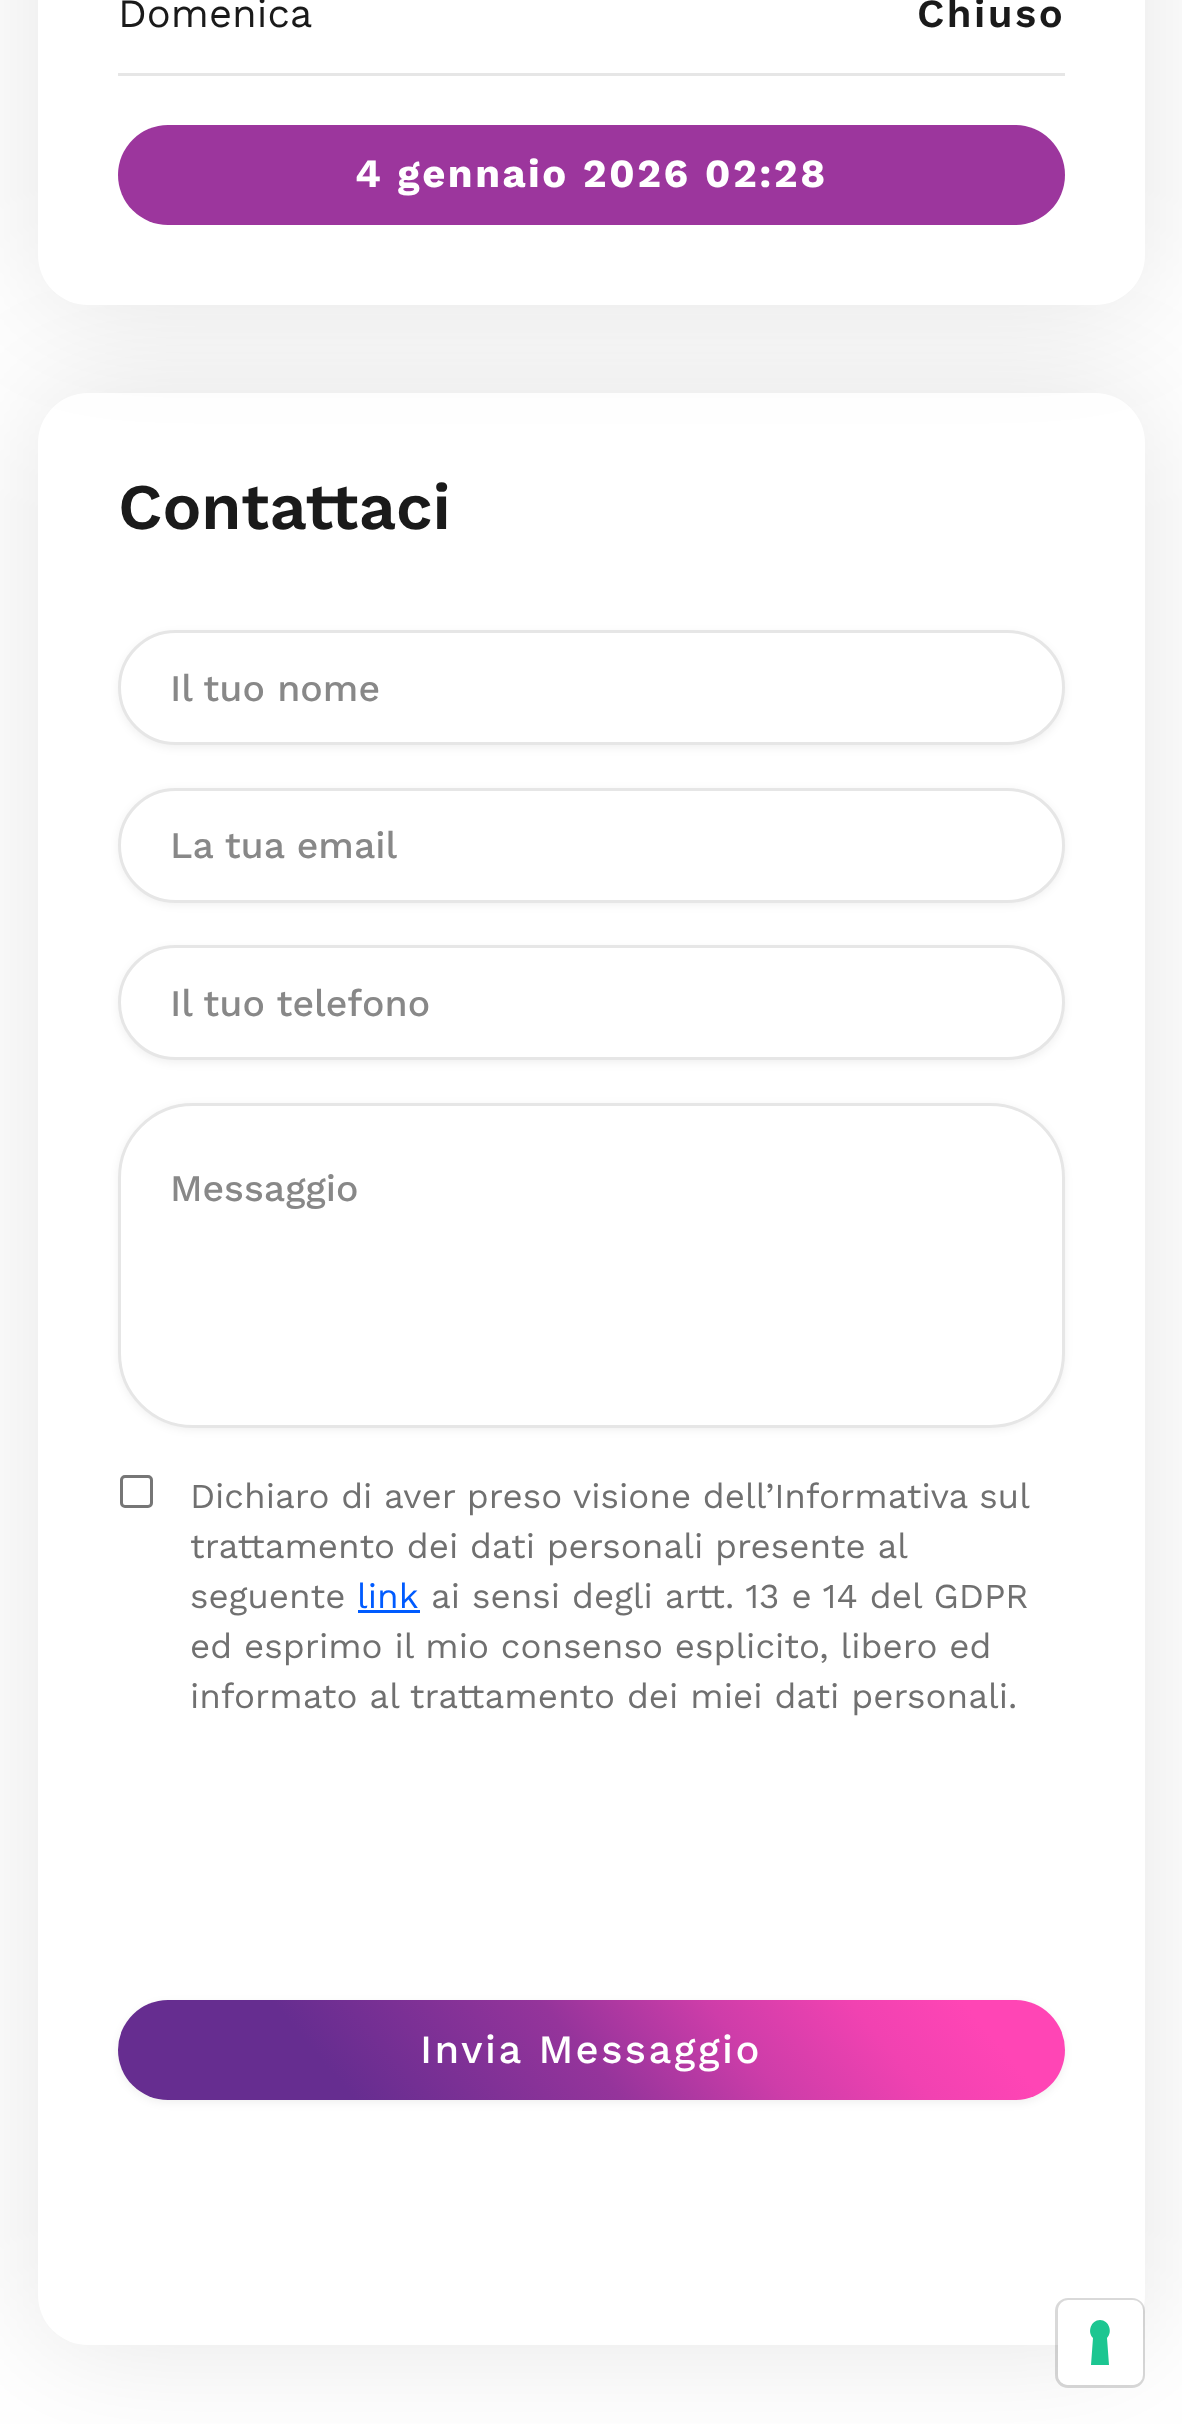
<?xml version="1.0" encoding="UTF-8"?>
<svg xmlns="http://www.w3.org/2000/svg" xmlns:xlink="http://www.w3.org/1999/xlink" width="1182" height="2424">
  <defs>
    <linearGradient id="g1" gradientUnits="userSpaceOnUse" x1="289" y1="2304" x2="894" y2="1796"><stop offset="0.23" stop-color="#662d90" /><stop offset="0.49" stop-color="#95349b" /><stop offset="0.65" stop-color="#ce3da9" /><stop offset="0.79" stop-color="#f142b1" /><stop offset="0.9" stop-color="#ff45b5" /></linearGradient>
  </defs>
  <rect width="100%" height="100%" fill="#ffffff" />
  <rect x="38" y="393" width="1107" height="1952" rx="50" fill="#000000" fill-opacity="0.1" filter="blur(62.5px)" />
  <rect x="38" y="393" width="1107" height="1952" rx="50" fill="#ffffff" />
  <rect x="38" y="-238" width="1107" height="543" rx="50" fill="#000000" fill-opacity="0.1" filter="blur(62.5px)" />
  <rect x="38" y="-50" width="1107" height="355" rx="50" fill="#ffffff" />
  <rect x="118" y="73" width="947" height="3" fill="#e6e6e6" />
  <rect x="118" y="125" width="947" height="100" rx="50" fill="#9c369d" />
  <rect x="118" y="633" width="947" height="115" rx="57.5" fill="#000000" fill-opacity="0.06" filter="blur(4px)" />
  <rect x="119.5" y="631.5" width="944" height="112" rx="56" fill="#ffffff" stroke="#e6e6e6" stroke-width="3" />
  <rect x="118" y="790" width="947" height="115" rx="57.5" fill="#000000" fill-opacity="0.06" filter="blur(4px)" />
  <rect x="119.5" y="789.5" width="944" height="112" rx="56" fill="#ffffff" stroke="#e6e6e6" stroke-width="3" />
  <rect x="118" y="948" width="947" height="115" rx="57.5" fill="#000000" fill-opacity="0.06" filter="blur(4px)" />
  <rect x="119.5" y="946.5" width="944" height="112" rx="56" fill="#ffffff" stroke="#e6e6e6" stroke-width="3" />
  <rect x="118" y="1105" width="947" height="325" rx="75" fill="#000000" fill-opacity="0.06" filter="blur(4px)" />
  <rect x="119.5" y="1104.5" width="944" height="322" rx="73.5" fill="#ffffff" stroke="#e6e6e6" stroke-width="3" />
  <rect x="121.5" y="1476.5" width="30" height="30" rx="3.5" fill="none" stroke="#767676" stroke-width="3" />
  <rect x="358" y="1610" width="62" height="3" fill="#005bff" />
  <rect x="118" y="2003" width="947" height="100" rx="50" fill="#000000" fill-opacity="0.06" filter="blur(4px)" />
  <rect x="118" y="2000" width="947" height="100" rx="50" fill="url(#g1)" />
  <rect x="1056.5" y="2299.5" width="87" height="87" rx="11.5" fill="none" stroke="#000000" stroke-opacity="0.15" stroke-width="3" />
  <rect x="1058" y="2300" width="85" height="85" rx="10" fill="#ffffff" />
  <path d="M 1100 2320 c 9 0 13 12 7 18 l 2 27 h -18 l 2 -27 c -6 -6 -2 -18 7 -18 z" fill="#1cc691" fill-rule="evenodd" />
  <text x="118" y="27" style="font-family: Work Sans; font-size: 40px; fill: #1a1a1a">Domenica</text>
  <text x="917" y="27" style="font-family: Work Sans; font-size: 40px; font-weight: 600; letter-spacing: 2.5px; fill: #1a1a1a">Chiuso</text>
  <text x="355" y="187" style="font-family: Work Sans; font-size: 40px; font-weight: bold; letter-spacing: 2.5px; fill: #ffffff">4 gennaio 2026 02:28</text>
  <text x="118" y="529" style="font-family: Work Sans; font-size: 65px; font-weight: 600; fill: #1a1a1a">Contattaci</text>
  <text x="170" y="701" style="font-family: Work Sans; font-size: 37.5px; font-weight: 500; fill: #888888">Il tuo nome</text>
  <text x="170" y="858" style="font-family: Work Sans; font-size: 37.5px; font-weight: 500; fill: #888888">La tua email</text>
  <text x="170" y="1016" style="font-family: Work Sans; font-size: 37.5px; font-weight: 500; fill: #888888">Il tuo telefono</text>
  <text x="170" y="1201" style="font-family: Work Sans; font-size: 37.5px; font-weight: 500; fill: #888888">Messaggio</text>
  <text x="190" y="1508" word-spacing="-0.25" style="font-family: Work Sans; font-size: 35px; fill: #707070">Dichiaro di aver preso visione dell’Informativa sul</text>
  <text x="190" y="1558" word-spacing="-0.25" style="font-family: Work Sans; font-size: 35px; fill: #707070">trattamento dei dati personali presente al</text>
  <text x="190" y="1608" style="font-family: Work Sans; font-size: 35px; fill: #707070">seguente</text>
  <text x="357" y="1608" style="font-family: Work Sans; font-size: 35px; fill: #005bff">link</text>
  <text x="431" y="1608" style="font-family: Work Sans; font-size: 35px; fill: #707070">ai sensi degli artt. 13 e 14 del GDPR</text>
  <text x="190" y="1658" style="font-family: Work Sans; font-size: 35px; fill: #707070">ed esprimo il mio consenso esplicito, libero ed</text>
  <text x="190" y="1708" style="font-family: Work Sans; font-size: 35px; fill: #707070">informato al trattamento dei miei dati personali.</text>
  <text x="420" y="2063" style="font-family: Work Sans; font-size: 40px; font-weight: 500; letter-spacing: 2.5px; fill: #ffffff">Invia Messaggio</text>
</svg>
